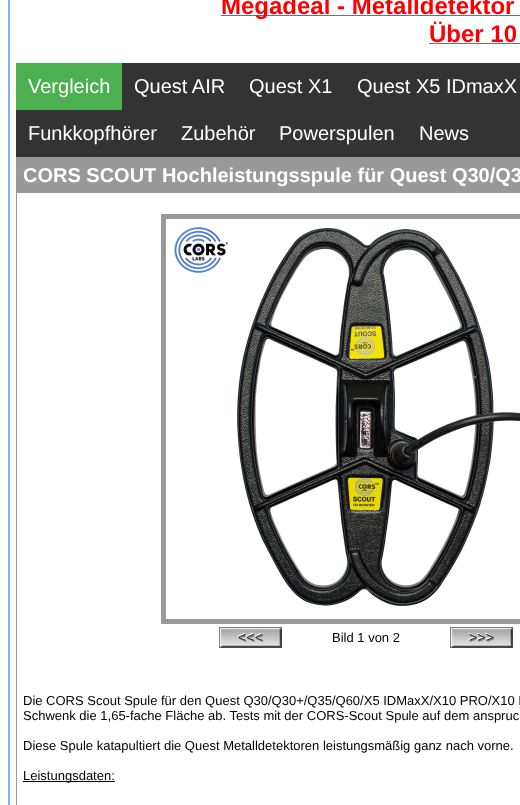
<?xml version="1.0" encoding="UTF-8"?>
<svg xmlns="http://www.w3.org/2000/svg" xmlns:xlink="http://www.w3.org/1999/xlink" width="520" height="805">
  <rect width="100%" height="100%" fill="#ffffff" />
  <rect x="9" y="-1" width="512" height="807" fill="none" stroke="#84affd" stroke-width="2" />
  <rect x="221" y="15" width="299" height="1" fill="#5b71a0" />
  <rect x="429" y="43" width="91" height="1" fill="#5b71a0" />
  <rect x="16" y="63" width="504" height="94" fill="#333333" />
  <rect x="16" y="63" width="106" height="47" fill="#4caf50" />
  <rect x="16.5" y="157.5" width="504" height="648" fill="none" stroke="#999999" />
  <rect x="17" y="158" width="503" height="35" fill="#999999" />
  <rect x="163.5" y="216.5" width="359" height="405" fill="none" stroke="#999999" stroke-width="5" />
  <image x="174" y="227" width="346" height="379" xlink:href="image1.png" />
  <image x="219" y="627" width="63" height="21" xlink:href="image2.png" />
  <image x="450" y="627" width="63" height="21" xlink:href="image3.png" />
  <rect x="23" y="781" width="92" height="1" fill="#000000" />
  <text x="221" y="14" style="font-family: Liberation Sans; font-size: 24px; font-weight: bold; fill: #ff0000">Megadeal - Metalldetektor</text>
  <text x="429" y="42" style="font-family: Liberation Sans; font-size: 24px; font-weight: bold; fill: #ff0000">Über 10</text>
  <text x="28" y="93" style="font-family: Liberation Sans; font-size: 20px; fill: #ffffff">Vergleich</text>
  <text x="134" y="93" style="font-family: Liberation Sans; font-size: 20px; fill: #ffffff">Quest AIR</text>
  <text x="249" y="93" style="font-family: Liberation Sans; font-size: 20px; fill: #ffffff">Quest X1</text>
  <text x="357" y="93" style="font-family: Liberation Sans; font-size: 20px; fill: #ffffff">Quest X5 IDmaxX</text>
  <text x="28" y="140" style="font-family: Liberation Sans; font-size: 20px; fill: #ffffff">Funkkopfhörer</text>
  <text x="181" y="140" style="font-family: Liberation Sans; font-size: 20px; fill: #ffffff">Zubehör</text>
  <text x="279" y="140" style="font-family: Liberation Sans; font-size: 20px; fill: #ffffff">Powerspulen</text>
  <text x="419" y="140" style="font-family: Liberation Sans; font-size: 20px; fill: #ffffff">News</text>
  <text x="23" y="182" style="font-family: Liberation Sans; font-size: 20px; font-weight: bold; fill: #ffffff">CORS SCOUT Hochleistungsspule für Quest Q30/Q3</text>
  <text x="332" y="642" style="font-family: Liberation Sans; font-size: 13px; fill: #000000">Bild 1 von 2</text>
  <text x="23" y="705" style="font-family: Liberation Sans; font-size: 13px; fill: #000000">Die CORS Scout Spule für den Quest Q30/Q30+/Q35/Q60/X5 IDMaxX/X10 PRO/X10 I</text>
  <text x="23" y="720" style="font-family: Liberation Sans; font-size: 13px; fill: #000000">Schwenk die 1,65-fache Fläche ab. Tests mit der CORS-Scout Spule auf dem anspruc</text>
  <text x="23" y="750" style="font-family: Liberation Sans; font-size: 13px; fill: #000000">Diese Spule katapultiert die Quest Metalldetektoren leistungsmäßig ganz nach vorne.</text>
  <text x="23" y="780" style="font-family: Liberation Sans; font-size: 13px; fill: #000000">Leistungsdaten:</text>
</svg>
